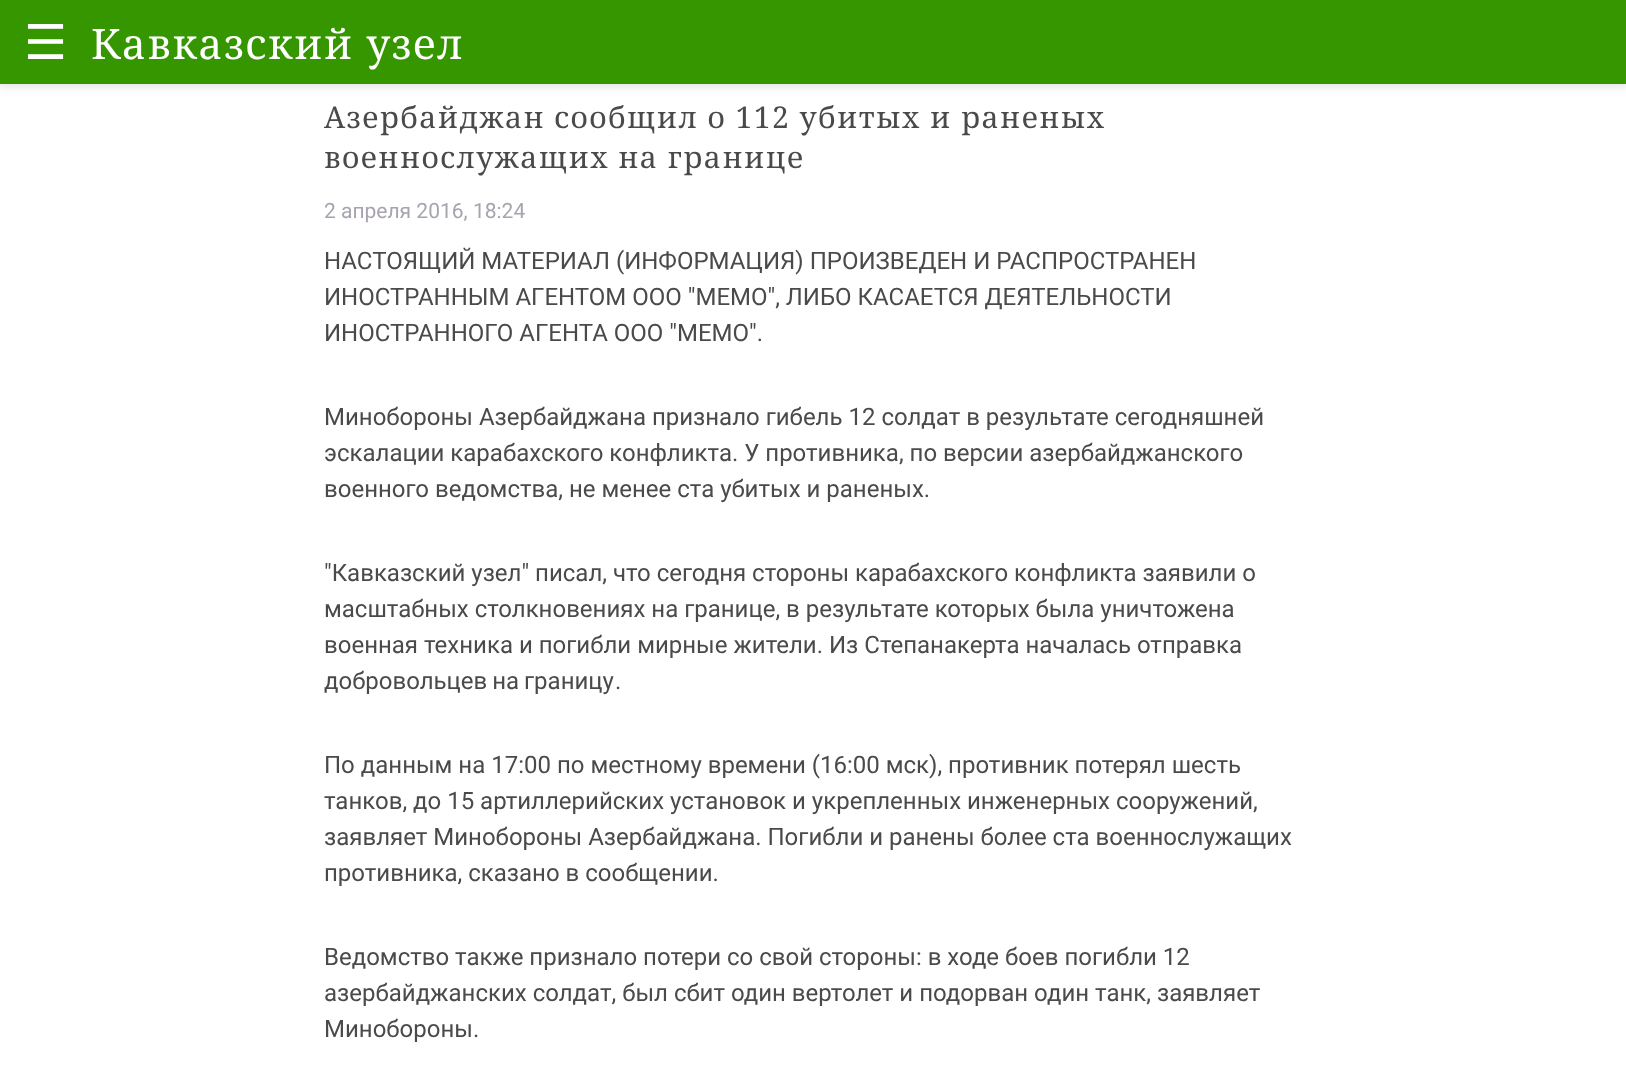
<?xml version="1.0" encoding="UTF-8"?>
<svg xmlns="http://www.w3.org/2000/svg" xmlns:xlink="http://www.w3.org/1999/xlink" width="1626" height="1073">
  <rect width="100%" height="100%" fill="#ffffff" />
  <rect x="-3" y="-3" width="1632" height="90" fill="#000000" fill-opacity="0.1" filter="blur(4px)" />
  <rect width="1626" height="84" fill="#359600" />
  <text x="24" y="59" style="font-family: DejaVu Sans; font-size: 48px; fill: #ffffff">☰</text>
  <text x="91" y="59" style="font-family: Noto Serif; font-size: 42px; letter-spacing: 1.5px; fill: #ffffff">Кавказский узел</text>
  <text x="324" y="128" style="font-family: Noto Serif; font-size: 30px; letter-spacing: 1.45px; fill: #4a4a4a">Азербайджан сообщил о 112 убитых и раненых</text>
  <text x="324" y="168" style="font-family: Noto Serif; font-size: 30px; letter-spacing: 1.45px; fill: #4a4a4a">военнослужащих на границе</text>
  <text x="324" y="218" style="font-family: Roboto; font-size: 21px; fill: #a8a3ae">2 апреля 2016, 18:24</text>
  <text x="324" y="269" style="font-family: Roboto; font-size: 24px; fill: #4a4a4a">НАСТОЯЩИЙ МАТЕРИАЛ (ИНФОРМАЦИЯ) ПРОИЗВЕДЕН И РАСПРОСТРАНЕН</text>
  <text x="324" y="305" style="font-family: Roboto; font-size: 24px; fill: #4a4a4a">ИНОСТРАННЫМ АГЕНТОМ ООО "МЕМО", ЛИБО КАСАЕТСЯ ДЕЯТЕЛЬНОСТИ</text>
  <text x="324" y="341" style="font-family: Roboto; font-size: 24px; fill: #4a4a4a">ИНОСТРАННОГО АГЕНТА ООО "МЕМО".</text>
  <text x="324" y="425" style="font-family: Roboto; font-size: 24px; fill: #4a4a4a">Минобороны Азербайджана признало гибель 12 солдат в результате сегодняшней</text>
  <text x="324" y="461" style="font-family: Roboto; font-size: 24px; fill: #4a4a4a">эскалации карабахского конфликта. У противника, по версии азербайджанского</text>
  <text x="324" y="497" style="font-family: Roboto; font-size: 24px; fill: #4a4a4a">военного ведомства, не менее ста убитых и раненых.</text>
  <text x="324" y="581" style="font-family: Roboto; font-size: 24px; fill: #4a4a4a">"Кавказский узел" писал, что сегодня стороны карабахского конфликта заявили о</text>
  <text x="324" y="617" style="font-family: Roboto; font-size: 24px; fill: #4a4a4a">масштабных столкновениях на границе, в результате которых была уничтожена</text>
  <text x="324" y="653" style="font-family: Roboto; font-size: 24px; fill: #4a4a4a">военная техника и погибли мирные жители. Из Степанакерта началась отправка</text>
  <text x="324" y="689" word-spacing="-1" style="font-family: Roboto; font-size: 24px; fill: #4a4a4a">добровольцев на границу</text>
  <text x="615" y="689" style="font-family: Roboto; font-size: 24px; fill: #4a4a4a">.</text>
  <text x="324" y="773" style="font-family: Roboto; font-size: 24px; fill: #4a4a4a">По данным на 17:00 по местному времени (16:00 мск), противник потерял шесть</text>
  <text x="324" y="809" style="font-family: Roboto; font-size: 24px; fill: #4a4a4a">танков, до 15 артиллерийских установок и укрепленных инженерных сооружений,</text>
  <text x="324" y="845" style="font-family: Roboto; font-size: 24px; fill: #4a4a4a">заявляет Минобороны Азербайджана. Погибли и ранены более ста военнослужащих</text>
  <text x="324" y="881" style="font-family: Roboto; font-size: 24px; fill: #4a4a4a">противника, сказано в сообщении.</text>
  <text x="324" y="965" style="font-family: Roboto; font-size: 24px; fill: #4a4a4a">Ведомство также признало потери со свой стороны: в ходе боев погибли 12</text>
  <text x="324" y="1001" style="font-family: Roboto; font-size: 24px; fill: #4a4a4a">азербайджанских солдат, был сбит один вертолет и подорван один танк, заявляет</text>
  <text x="324" y="1037" style="font-family: Roboto; font-size: 24px; fill: #4a4a4a">Минобороны.</text>
</svg>
